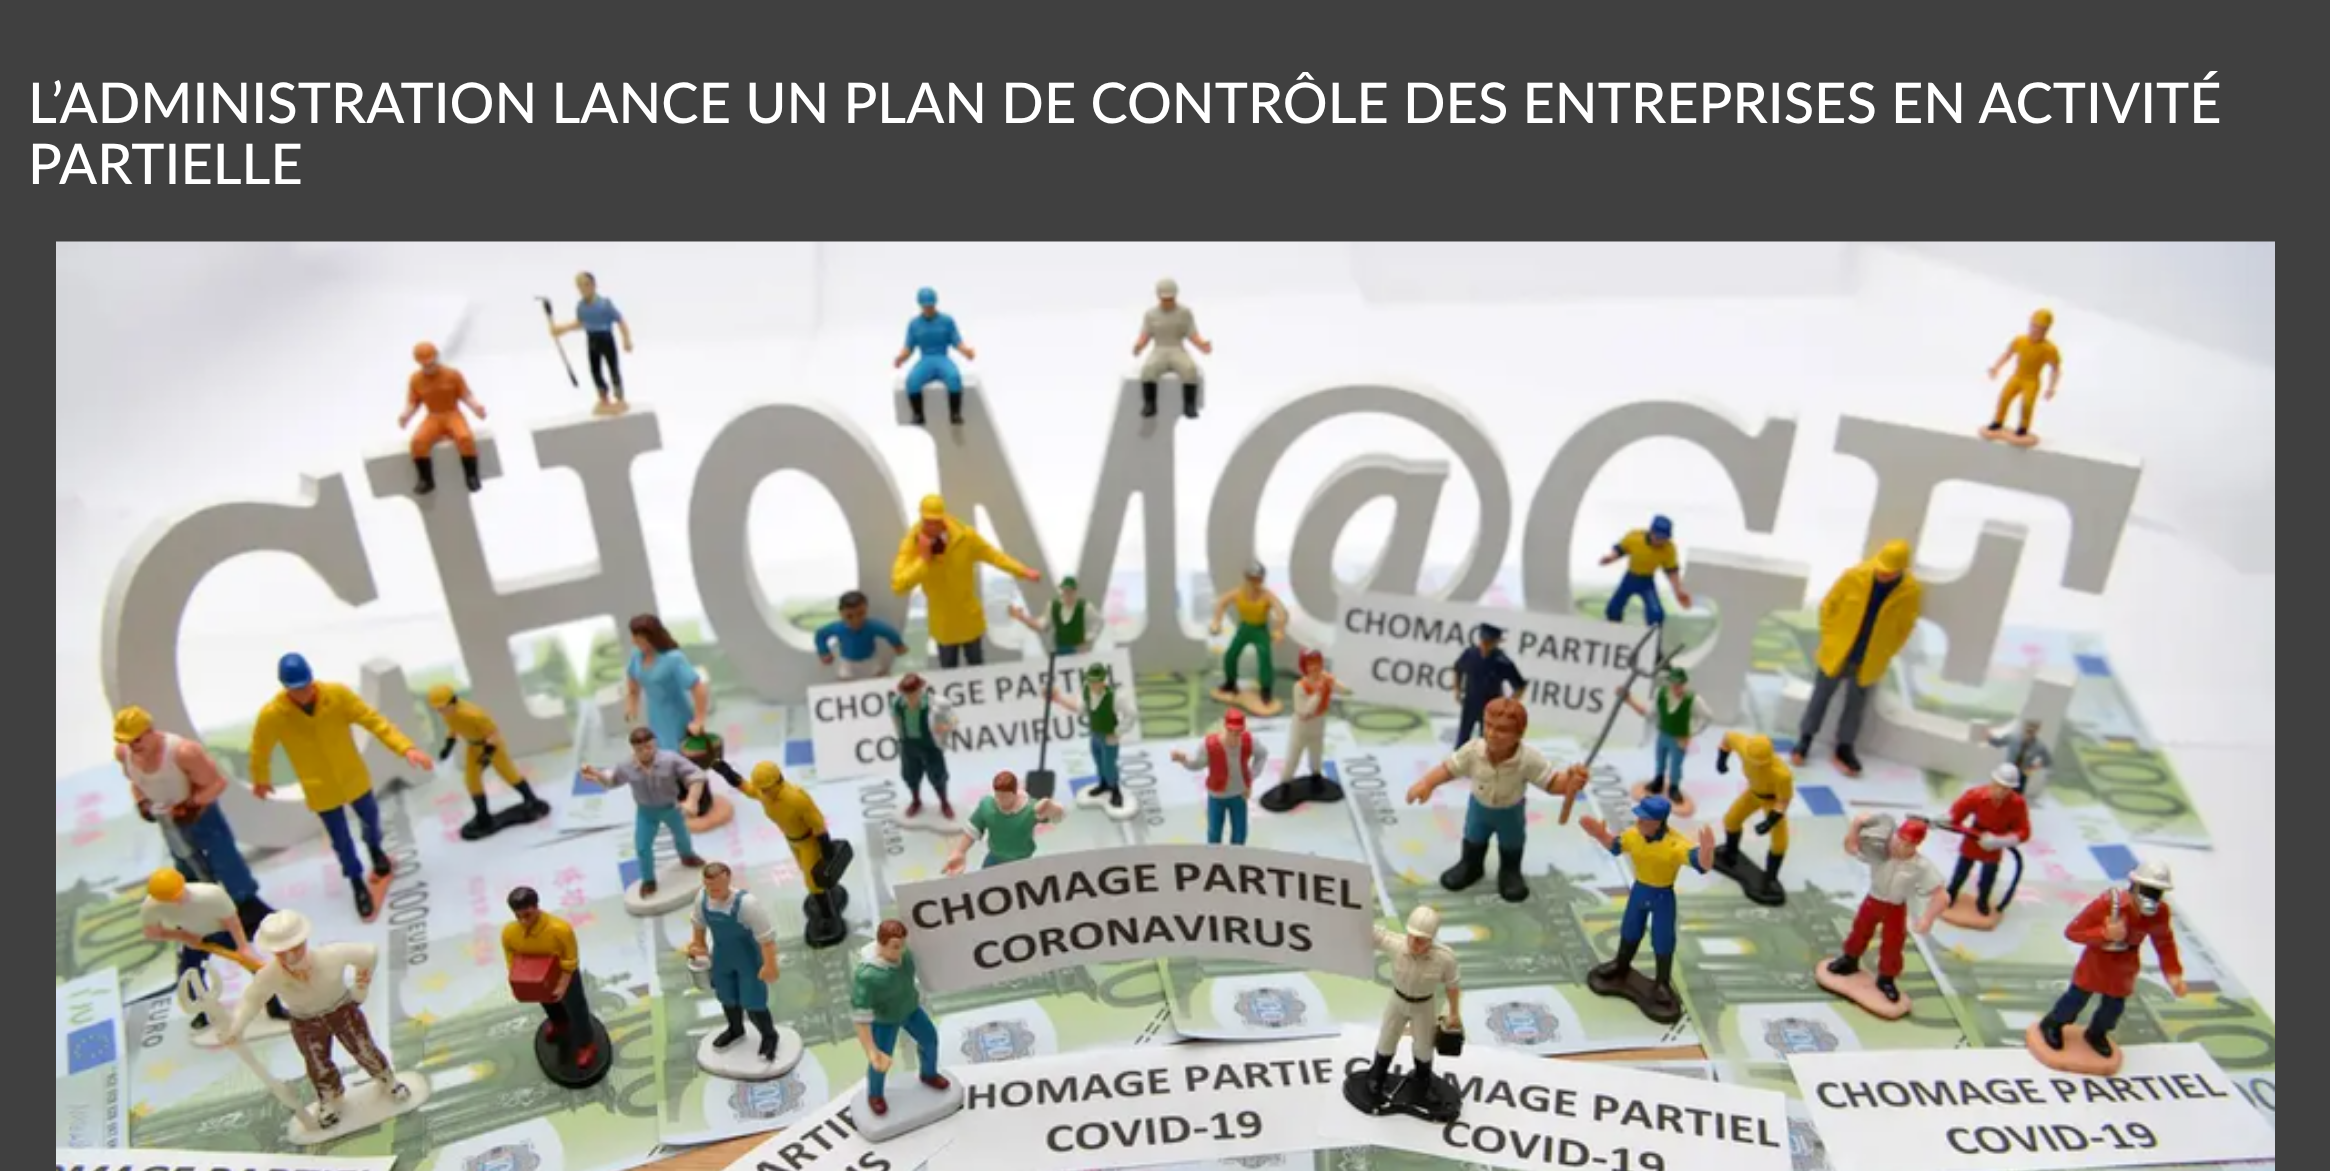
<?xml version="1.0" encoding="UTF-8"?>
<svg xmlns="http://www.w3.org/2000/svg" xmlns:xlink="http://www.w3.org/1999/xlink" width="2330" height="1171">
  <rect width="100%" height="100%" fill="#404040" />
  <image x="56" y="241" width="2219" height="930" xlink:href="image1.png" />
  <text x="28" y="123" style="font-family: Lato; font-size: 56px; font-weight: 500; fill: #ffffff">L’ADMINISTRATION LANCE UN PLAN DE CONTRÔLE DES ENTREPRISES EN ACTIVITÉ</text>
  <text x="28" y="184" style="font-family: Lato; font-size: 56px; font-weight: 500; fill: #ffffff">PARTIELLE</text>
</svg>
